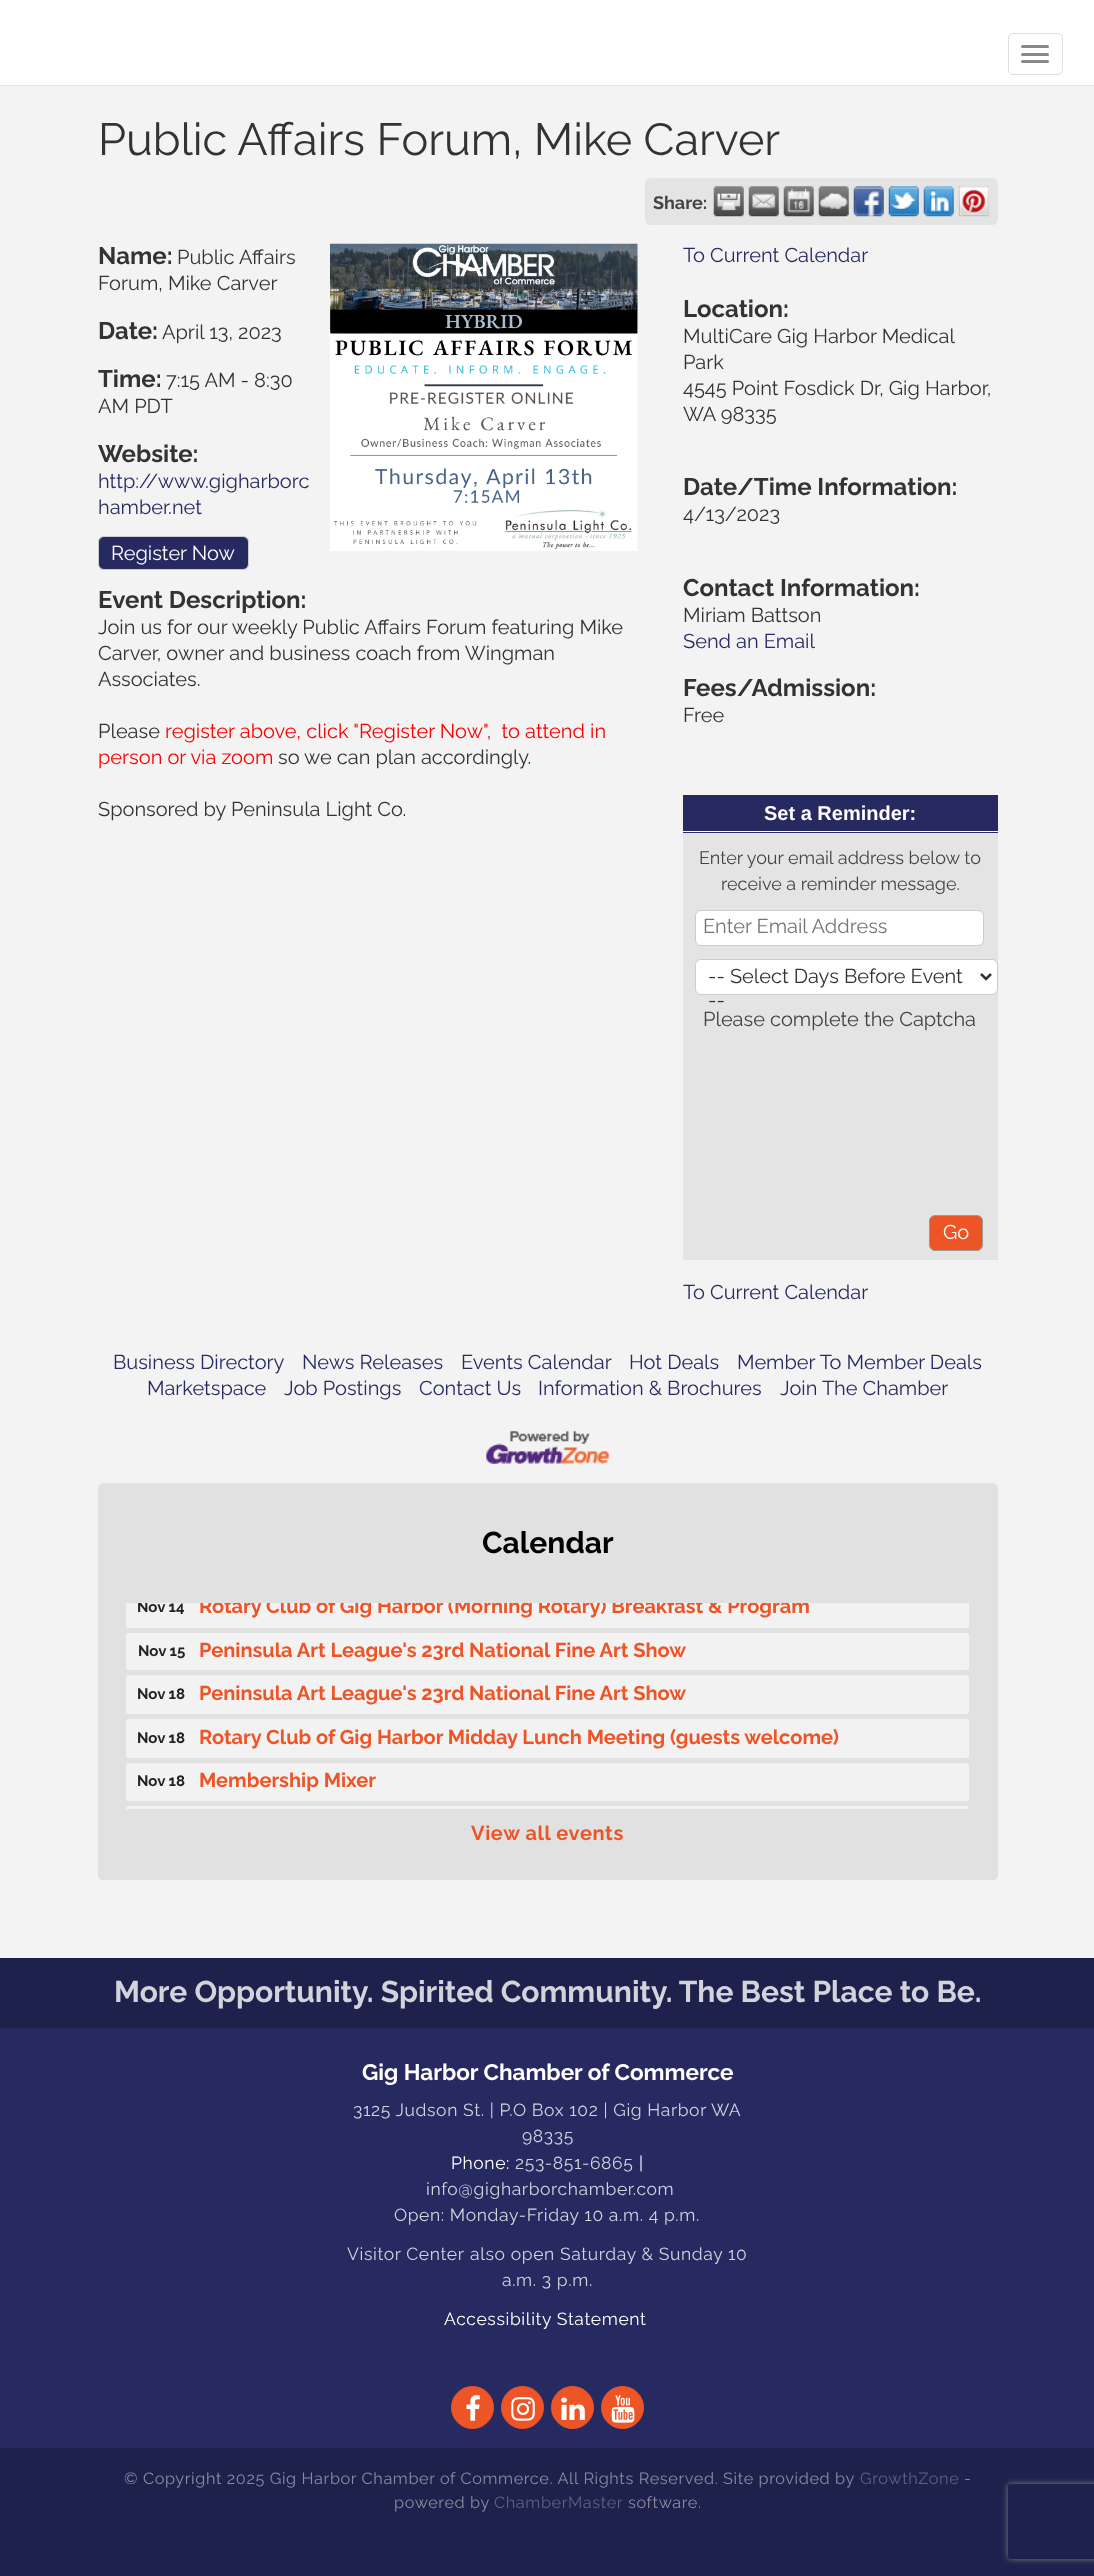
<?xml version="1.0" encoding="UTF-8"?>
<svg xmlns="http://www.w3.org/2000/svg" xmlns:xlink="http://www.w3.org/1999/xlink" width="1094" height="2576">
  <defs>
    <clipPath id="clip1"><path d="M 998 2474 h 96 v 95 h -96 z m 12.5 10 h 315 c 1.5 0 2.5 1 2.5 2.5 v 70 c 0 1.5 -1 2.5 -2.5 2.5 h -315 c -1.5 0 -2.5 -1 -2.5 -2.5 v -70 c 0 -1.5 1 -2.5 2.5 -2.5 z" clip-rule="evenodd" /></clipPath>
    <clipPath id="clip2"><rect x="126" y="1603" width="843" height="206" /></clipPath>
  </defs>
  <rect width="100%" height="100%" fill="#1e214b" />
  <rect width="1094" height="85" fill="#ffffff" />
  <rect y="85" width="1094" height="1" fill="#e6e6e6" />
  <rect x="1008.5" y="33.5" width="54" height="41" rx="4.5" fill="none" stroke="#dddddd" />
  <rect x="1021" y="45" width="28" height="3" rx="1.5" fill="#888888" />
  <rect x="1021" y="53" width="28" height="3" rx="1.5" fill="#888888" />
  <rect x="1021" y="60" width="28" height="3" rx="1.5" fill="#888888" />
  <rect y="86" width="1094" height="1872" fill="#f3f3f3" />
  <rect x="645" y="178" width="353" height="47" rx="6" fill="#e4e4e4" />
  <image x="713" y="186" width="31" height="31" xlink:href="image1.png" />
  <image x="748" y="186" width="31" height="31" xlink:href="image2.png" />
  <image x="783" y="186" width="31" height="31" xlink:href="image3.png" />
  <image x="818" y="186" width="31" height="31" xlink:href="image4.png" />
  <image x="853" y="186" width="31" height="31" xlink:href="image5.png" />
  <image x="888" y="186" width="31" height="31" xlink:href="image6.png" />
  <image x="923" y="186" width="31" height="31" xlink:href="image7.png" />
  <image x="958" y="186" width="31" height="31" xlink:href="image8.png" />
  <rect x="98.5" y="536.5" width="150" height="33" rx="5.5" fill="#272a61" stroke="#cccccc" />
  <image x="330" y="243" width="308" height="308" xlink:href="image9.png" />
  <rect x="683" y="833" width="315" height="427" fill="#e4e4e4" />
  <rect x="683" y="795" width="315" height="38" fill="#272a61" />
  <rect x="683" y="831" width="315" height="1" fill="#ffffff" />
  <rect x="695.5" y="910.5" width="288" height="35" rx="5.5" fill="#ffffff" stroke="#cccccc" />
  <rect x="695.5" y="959.5" width="302" height="35" rx="5.5" fill="#ffffff" stroke="#cccccc" />
  <path d="M 981 974 l 5 5 l 5 -5" fill="none" stroke="#333333" stroke-width="2.5" />
  <rect x="929.5" y="1215.5" width="53" height="35" rx="5.5" fill="#ed5426" stroke="#999999" />
  <image x="486" y="1431" width="123" height="33" xlink:href="image10.png" />
  <rect x="98" y="1483" width="900" height="397" rx="5" fill="#e1e1e1" />
  <path d="M 98 1574 h 900 v 302 c 0 2 -2 4 -4 4 h -892 c -2 0 -4 -2 -4 -4 z" fill="#e1e1e1" />
  <path d="M 126 1603 h 843 v 22.5 c 0 1.5 -1 2.5 -2.5 2.5 h -838 c -1.5 0 -2.5 -1 -2.5 -2.5 z" fill="#f2f2f2" />
  <rect x="126" y="1633" width="843" height="37" rx="2.5" fill="#f2f2f2" />
  <rect x="126" y="1675" width="843" height="39" rx="2.5" fill="#f2f2f2" />
  <rect x="126" y="1719" width="843" height="39" rx="2.5" fill="#f2f2f2" />
  <rect x="126" y="1763" width="843" height="38" rx="2.5" fill="#f2f2f2" />
  <path d="M 128.5 1806 h 838 c 1.5 0 2.5 1 2.5 2.5 v 0.5 h -843 v -0.5 c 0 -1.5 1 -2.5 2.5 -2.5 z" fill="#f2f2f2" />
  <rect y="2028" width="1094" height="420" fill="#272a61" />
  <circle cx="472.5" cy="2407.5" r="21" fill="#ee5526" stroke="#ee5526" />
  <image x="466" y="2395" width="14" height="26" xlink:href="image11.png" />
  <circle cx="522.5" cy="2407.5" r="21" fill="#ee5526" stroke="#ee5526" />
  <image x="511" y="2397" width="24" height="24" xlink:href="image12.png" />
  <circle cx="572.5" cy="2407.5" r="21" fill="#ee5526" stroke="#ee5526" />
  <image x="561" y="2397" width="24" height="23" xlink:href="image13.png" />
  <circle cx="622.5" cy="2407.5" r="21" fill="#ee5526" stroke="#ee5526" />
  <image x="611" y="2395" width="24" height="28" xlink:href="image14.png" />
  <g clip-path="url(#clip1)">
    <rect x="1008" y="2484" width="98" height="75" rx="2.5" fill="#808080" filter="blur(3px)" />
  </g>
  <text x="98" y="155" style="font-family: Raleway; font-size: 45px; fill: #333333">Public Affairs Forum, Mike Carver</text>
  <text x="653" y="209" style="font-family: Raleway; font-size: 18px; font-weight: bold; fill: #444444">Share:</text>
  <text x="98" y="264" style="font-family: Raleway; font-size: 24px; font-weight: bold; fill: #333333">Name:</text>
  <text x="177" y="264" style="font-family: Raleway; font-size: 20px; fill: #333333">Public Affairs</text>
  <text x="98" y="290" style="font-family: Raleway; font-size: 20px; fill: #333333">Forum, Mike Carver</text>
  <text x="98" y="339" style="font-family: Raleway; font-size: 24px; font-weight: bold; fill: #333333">Date:</text>
  <text x="162" y="339" style="font-family: Raleway; font-size: 20px; fill: #333333">April 13, 2023</text>
  <text x="98" y="387" style="font-family: Raleway; font-size: 24px; font-weight: bold; fill: #333333">Time:</text>
  <text x="166" y="387" style="font-family: Raleway; font-size: 20px; fill: #333333">7:15 AM - 8:30</text>
  <text x="98" y="413" style="font-family: Raleway; font-size: 20px; fill: #333333">AM PDT</text>
  <text x="98" y="462" style="font-family: Raleway; font-size: 24px; font-weight: bold; fill: #333333">Website:</text>
  <text x="98" y="488" style="font-family: Raleway; font-size: 20px; fill: #272a61">http://www.gigharborc</text>
  <text x="98" y="514" style="font-family: Raleway; font-size: 20px; fill: #272a61">hamber.net</text>
  <text x="111" y="560" style="font-family: Raleway; font-size: 20px; fill: #ffffff">Register Now</text>
  <text x="98" y="608" style="font-family: Raleway; font-size: 24px; font-weight: bold; fill: #333333">Event Description:</text>
  <text x="98" y="634" style="font-family: Raleway; font-size: 20px; fill: #333333">Join us for our weekly Public Affairs Forum featuring Mike</text>
  <text x="98" y="660" style="font-family: Raleway; font-size: 20px; fill: #333333">Carver, owner and business coach from Wingman</text>
  <text x="98" y="686" style="font-family: Raleway; font-size: 20px; fill: #333333">Associates.</text>
  <text x="98" y="738" style="font-family: Raleway; font-size: 20px; fill: #333333">Please</text>
  <text x="165" y="738" style="font-family: Raleway; font-size: 20px; fill: #ff0000" xml:space="preserve">register above, click "Register Now",  to attend in</text>
  <text x="98" y="764" style="font-family: Raleway; font-size: 20px; fill: #ff0000">person or via zoom</text>
  <text x="278" y="764" style="font-family: Raleway; font-size: 20px; fill: #333333">so we can plan accordingly.</text>
  <text x="98" y="816" style="font-family: Raleway; font-size: 20px; fill: #333333">Sponsored by Peninsula Light Co.</text>
  <text x="683" y="262" style="font-family: Raleway; font-size: 20px; fill: #272a61">To Current Calendar</text>
  <text x="683" y="317" style="font-family: Raleway; font-size: 24px; font-weight: bold; fill: #333333">Location:</text>
  <text x="683" y="343" style="font-family: Raleway; font-size: 20px; fill: #333333">MultiCare Gig Harbor Medical</text>
  <text x="683" y="369" style="font-family: Raleway; font-size: 20px; fill: #333333">Park</text>
  <text x="683" y="395" style="font-family: Raleway; font-size: 20px; fill: #333333">4545 Point Fosdick Dr, Gig Harbor,</text>
  <text x="683" y="421" style="font-family: Raleway; font-size: 20px; fill: #333333">WA 98335</text>
  <text x="683" y="495" style="font-family: Raleway; font-size: 24px; font-weight: bold; fill: #333333">Date/Time Information:</text>
  <text x="683" y="521" style="font-family: Raleway; font-size: 20px; fill: #333333">4/13/2023</text>
  <text x="683" y="596" style="font-family: Raleway; font-size: 24px; font-weight: bold; fill: #333333">Contact Information:</text>
  <text x="683" y="622" style="font-family: Raleway; font-size: 20px; fill: #333333">Miriam Battson</text>
  <text x="683" y="648" style="font-family: Raleway; font-size: 20px; fill: #272a61">Send an Email</text>
  <text x="683" y="696" style="font-family: Raleway; font-size: 24px; font-weight: bold; fill: #333333">Fees/Admission:</text>
  <text x="683" y="722" style="font-family: Raleway; font-size: 20px; fill: #333333">Free</text>
  <text x="764" y="820" style="font-family: Liberation Sans; font-size: 20px; font-weight: bold; fill: #ffffff">Set a Reminder:</text>
  <text x="699" y="864" style="font-family: Raleway; font-size: 18px; fill: #444444">Enter your email address below to</text>
  <text x="721" y="890" style="font-family: Raleway; font-size: 18px; fill: #444444">receive a reminder message.</text>
  <text x="703" y="933" style="font-family: Raleway; font-size: 20px; fill: #757575">Enter Email Address</text>
  <text x="708" y="983" style="font-family: Raleway; font-size: 20px; fill: #333333">-- Select Days Before Event</text>
  <text x="708" y="1007" style="font-family: Raleway; font-size: 20px; fill: #333333">--</text>
  <text x="703" y="1026" style="font-family: Raleway; font-size: 20px; fill: #444444">Please complete the Captcha</text>
  <text x="943" y="1239" style="font-family: Raleway; font-size: 20px; fill: #ffffff">Go</text>
  <text x="683" y="1299" style="font-family: Raleway; font-size: 20px; fill: #272a61">To Current Calendar</text>
  <text x="113" y="1369" style="font-family: Raleway; font-size: 20px; fill: #272a61">Business Directory</text>
  <text x="302" y="1369" style="font-family: Raleway; font-size: 20px; fill: #272a61">News Releases</text>
  <text x="461" y="1369" style="font-family: Raleway; font-size: 20px; fill: #272a61">Events Calendar</text>
  <text x="629" y="1369" style="font-family: Raleway; font-size: 20px; fill: #272a61">Hot Deals</text>
  <text x="737" y="1369" style="font-family: Raleway; font-size: 20px; fill: #272a61">Member To Member Deals</text>
  <text x="147" y="1395" style="font-family: Raleway; font-size: 20px; fill: #272a61">Marketspace</text>
  <text x="284" y="1395" style="font-family: Raleway; font-size: 20px; fill: #272a61">Job Postings</text>
  <text x="419" y="1395" style="font-family: Raleway; font-size: 20px; fill: #272a61">Contact Us</text>
  <text x="538" y="1395" style="font-family: Raleway; font-size: 20px; fill: #272a61">Information &amp; Brochures</text>
  <text x="780" y="1395" style="font-family: Raleway; font-size: 20px; fill: #272a61">Join The Chamber</text>
  <text x="482" y="1553" style="font-family: Raleway; font-size: 30px; font-weight: bold; fill: #000000">Calendar</text>
  <g clip-path="url(#clip2)">
    <text x="137" y="1612" style="font-family: Raleway; font-size: 15px; font-weight: bold; fill: #222222">Nov 14</text>
    <text x="199" y="1613" style="font-family: Raleway; font-size: 20px; font-weight: bold; fill: #ed5426">Rotary Club of Gig Harbor (Morning Rotary) Breakfast &amp; Program</text>
  </g>
  <text x="138" y="1656" style="font-family: Raleway; font-size: 15px; font-weight: bold; fill: #222222">Nov 15</text>
  <text x="199" y="1657" style="font-family: Raleway; font-size: 20px; font-weight: bold; fill: #ed5426">Peninsula Art League's 23rd National Fine Art Show</text>
  <text x="137" y="1699" style="font-family: Raleway; font-size: 15px; font-weight: bold; fill: #222222">Nov 18</text>
  <text x="199" y="1700" style="font-family: Raleway; font-size: 20px; font-weight: bold; fill: #ed5426">Peninsula Art League's 23rd National Fine Art Show</text>
  <text x="137" y="1743" style="font-family: Raleway; font-size: 15px; font-weight: bold; fill: #222222">Nov 18</text>
  <text x="199" y="1744" style="font-family: Raleway; font-size: 20px; font-weight: bold; fill: #ed5426">Rotary Club of Gig Harbor Midday Lunch Meeting (guests welcome)</text>
  <text x="137" y="1786" style="font-family: Raleway; font-size: 15px; font-weight: bold; fill: #222222">Nov 18</text>
  <text x="199" y="1787" style="font-family: Raleway; font-size: 20px; font-weight: bold; fill: #ed5426">Membership Mixer</text>
  <text x="471" y="1840" style="font-family: Raleway; font-size: 20px; font-weight: bold; letter-spacing: 0.62px; fill: #ed5426">View all events</text>
  <text x="114" y="2002" style="font-family: Raleway; font-size: 30px; font-weight: bold; fill: #d2d3db">More Opportunity. Spirited Community. The Best Place to Be.</text>
  <text x="362" y="2080" style="font-family: Raleway; font-size: 22.5px; font-weight: bold; fill: #ffffff">Gig Harbor Chamber of Commerce</text>
  <text x="353" y="2116" style="font-family: Raleway; font-size: 17.5px; letter-spacing: 0.62px; fill: #d2d3db">3125 Judson St. | P.O Box 102 | Gig Harbor WA</text>
  <text x="522" y="2142" style="font-family: Raleway; font-size: 17.5px; letter-spacing: 0.62px; fill: #d2d3db">98335</text>
  <text x="451" y="2169" style="font-family: Raleway; font-size: 17.5px; letter-spacing: 0.62px; fill: #ffffff">Phone:</text>
  <text x="515" y="2169" style="font-family: Raleway; font-size: 17.5px; letter-spacing: 0.62px; fill: #d2d3db">253-851-6865</text>
  <text x="639" y="2169" style="font-family: Raleway; font-size: 17.5px; letter-spacing: 0.62px; fill: #ffffff">|</text>
  <text x="426" y="2195" style="font-family: Raleway; font-size: 17.5px; letter-spacing: 0.62px; fill: #d2d3db">info@gigharborchamber.com</text>
  <text x="394" y="2221" style="font-family: Raleway; font-size: 17.5px; letter-spacing: 0.62px; fill: #d2d3db">Open: Monday-Friday 10 a.m. 4 p.m.</text>
  <text x="347" y="2260" style="font-family: Raleway; font-size: 17.5px; letter-spacing: 0.62px; fill: #d2d3db">Visitor Center</text>
  <text x="470" y="2260" style="font-family: Raleway; font-size: 17.5px; letter-spacing: 0.62px; fill: #d2d3db">also open Saturday &amp; Sunday 10</text>
  <text x="502" y="2286" style="font-family: Raleway; font-size: 17.5px; letter-spacing: 0.62px; fill: #d2d3db">a.m. 3 p.m.</text>
  <text x="444" y="2325" style="font-family: Raleway; font-size: 17.5px; letter-spacing: 0.62px; fill: #ffffff">Accessibility Statement</text>
  <text x="124" y="2484" style="font-family: Raleway; font-size: 16.25px; letter-spacing: 0.62px; fill: #8a8ba1">© Copyright 2025 Gig Harbor Chamber of Commerce. All Rights Reserved. Site provided by</text>
  <text x="860" y="2484" style="font-family: Raleway; font-size: 16.25px; letter-spacing: 0.62px; fill: #5f617f">GrowthZone</text>
  <text x="964" y="2484" style="font-family: Raleway; font-size: 16.25px; letter-spacing: 0.62px; fill: #8a8ba1">-</text>
  <text x="394" y="2508" style="font-family: Raleway; font-size: 16.25px; letter-spacing: 0.62px; fill: #8a8ba1">powered by</text>
  <text x="494" y="2508" style="font-family: Raleway; font-size: 16.25px; letter-spacing: 0.62px; fill: #5f617f">ChamberMaster</text>
  <text x="628" y="2508" style="font-family: Raleway; font-size: 16.25px; letter-spacing: 0.62px; fill: #8a8ba1">software.</text>
</svg>
